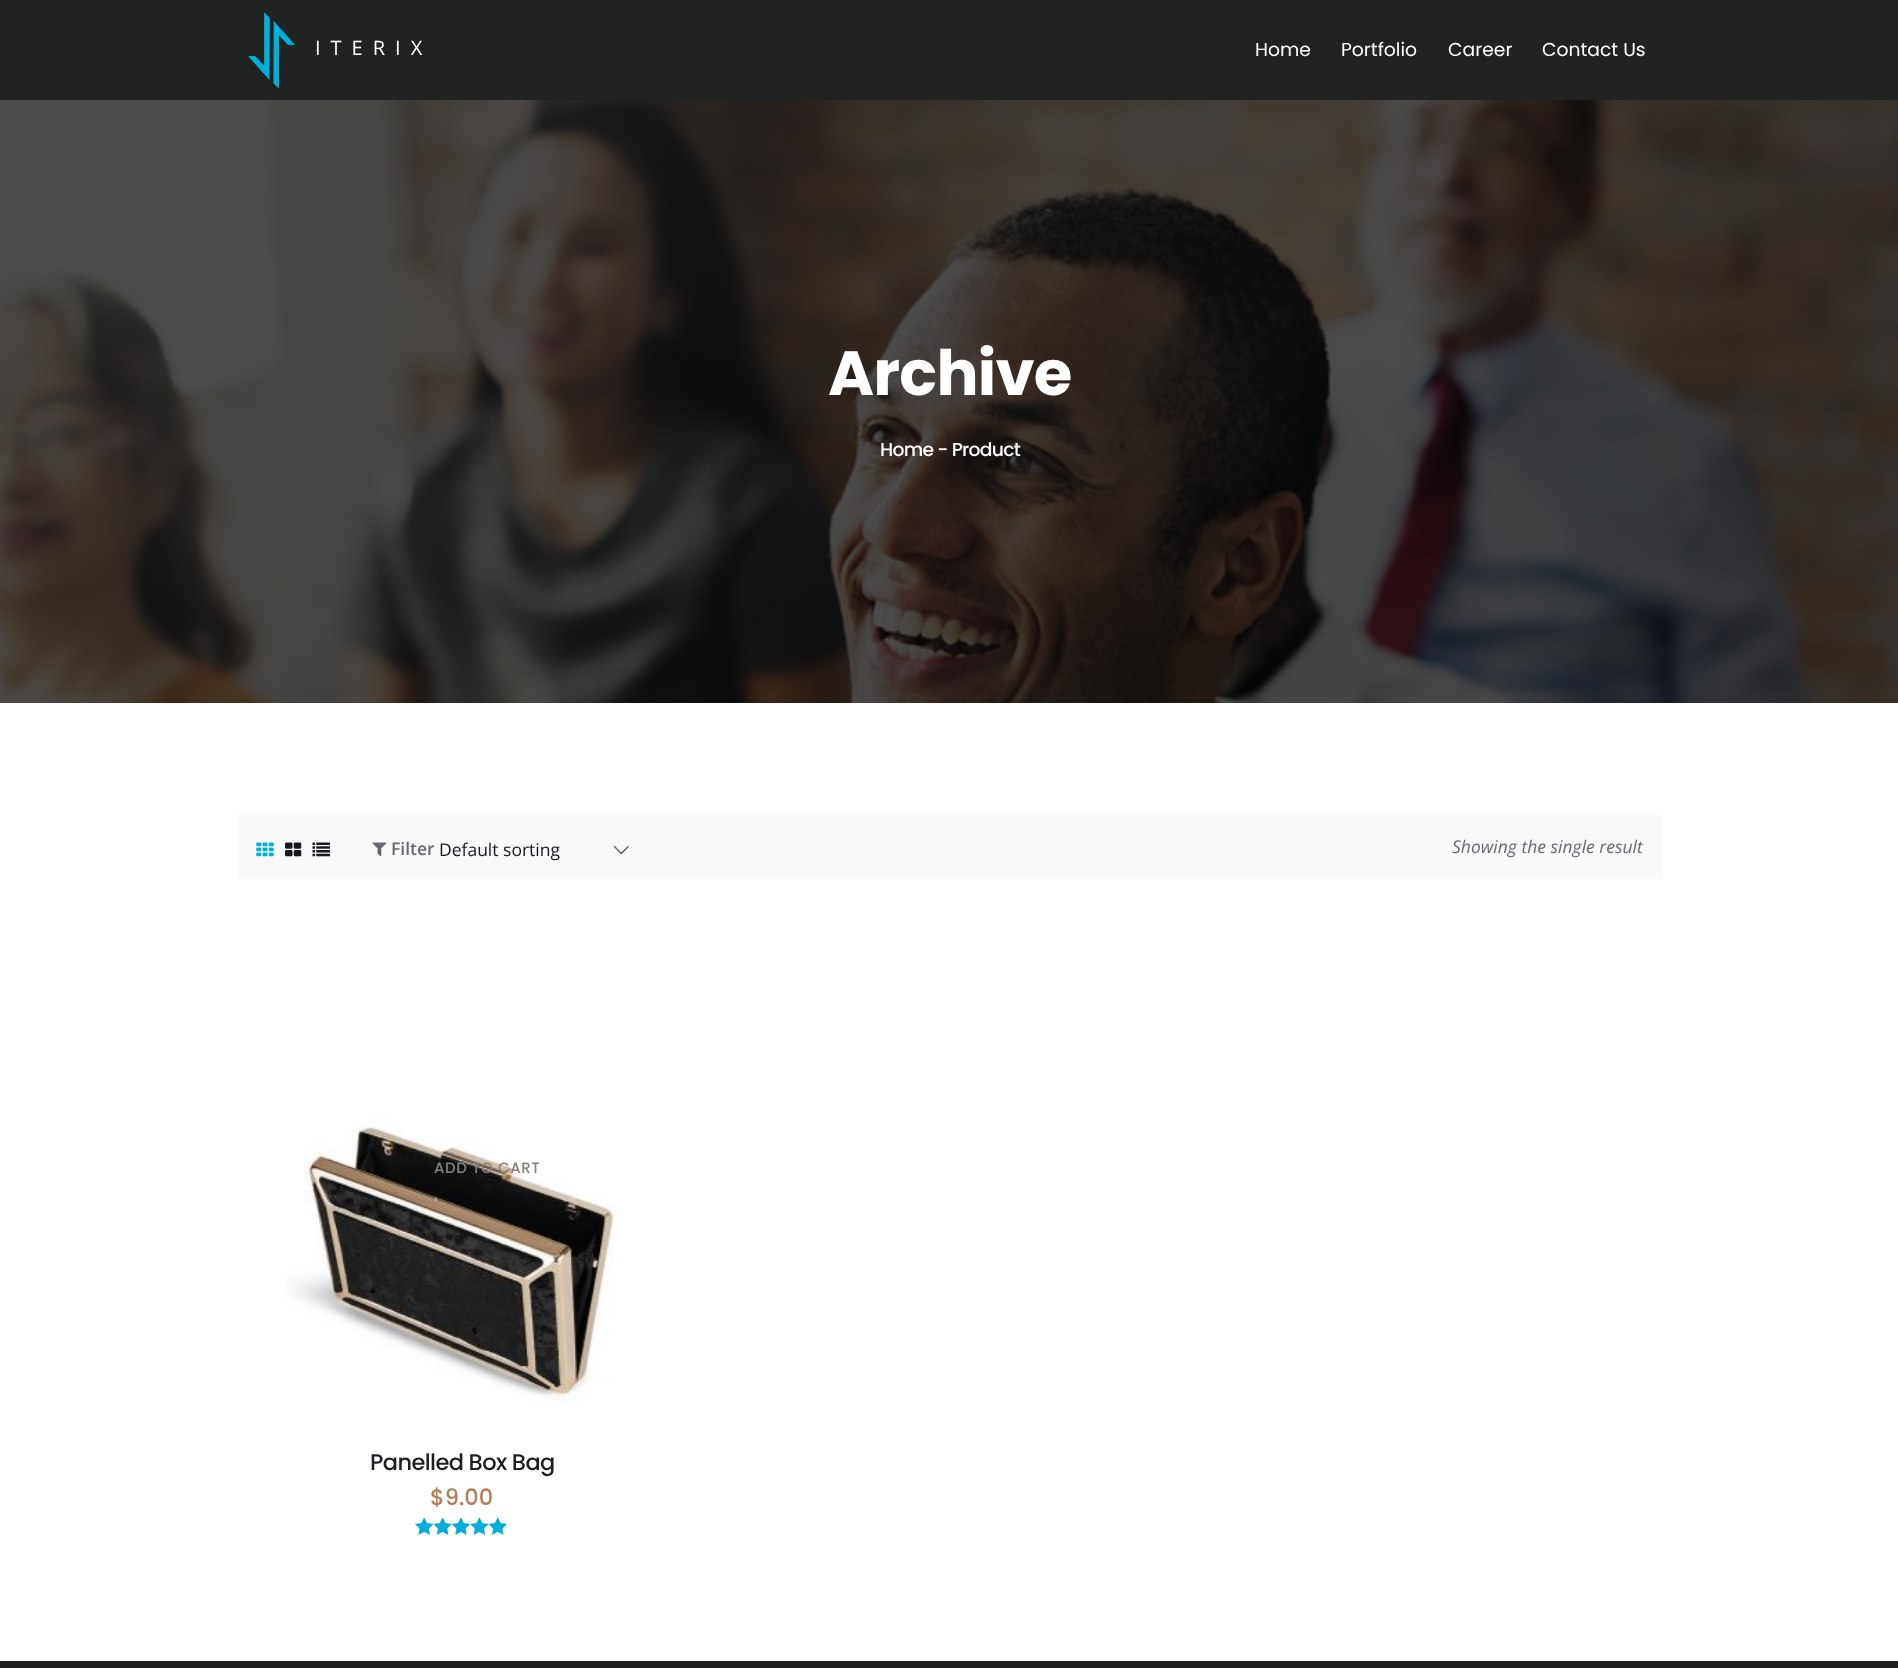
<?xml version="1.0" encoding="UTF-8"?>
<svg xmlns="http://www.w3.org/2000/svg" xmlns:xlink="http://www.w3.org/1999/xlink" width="1898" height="1668">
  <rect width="100%" height="100%" fill="#ffffff" />
  <rect width="1898" height="100" fill="#212222" />
  <image x="248" y="12" width="47" height="77" xlink:href="image1.png" />
  <image x="0" y="100" width="1898" height="603" xlink:href="image2.png" />
  <rect x="238" y="815" width="1425" height="64" fill="#f9f9f9" />
  <image x="256" y="842" width="18" height="15" xlink:href="image3.png" />
  <image x="285" y="842" width="17" height="15" xlink:href="image4.png" />
  <image x="312" y="842" width="18" height="15" xlink:href="image5.png" />
  <image x="372" y="842" width="15" height="15" xlink:href="image6.png" />
  <image x="613" y="845" width="16" height="10" xlink:href="image7.png" />
  <image x="285" y="1115" width="330" height="288" xlink:href="image8.png" />
  <image x="415" y="1518" width="92" height="17" xlink:href="image9.png" />
  <image x="415" y="1518" width="92" height="17" xlink:href="image10.png" />
  <rect y="1661" width="1898" height="7" fill="#202020" />
  <text x="315" y="55" style="font-family: Open Sans; font-size: 20px; letter-spacing: 10px; fill: #ffffff">ITERIX</text>
  <text x="1255" y="56" style="font-family: Poppins; font-size: 18.75px; fill: #ffffff">Home</text>
  <text x="1341" y="56" style="font-family: Poppins; font-size: 18.75px; fill: #ffffff">Portfolio</text>
  <text x="1448" y="56" style="font-family: Poppins; font-size: 18.75px; fill: #ffffff">Career</text>
  <text x="1542" y="56" style="font-family: Poppins; font-size: 18.75px; fill: #ffffff">Contact Us</text>
  <text x="828" y="395" style="font-family: Poppins; font-size: 62.5px; font-weight: bold; letter-spacing: -0.75px; fill: #ffffff">Archive</text>
  <text x="880" y="456" style="font-family: Poppins; font-size: 18.75px; font-weight: 500; letter-spacing: -0.75px; fill: #ffffff">Home - Product</text>
  <text x="391" y="855" style="font-family: Open Sans; font-size: 17.5px; font-weight: 600; fill: #686876">Filter</text>
  <text x="439" y="856" style="font-family: Open Sans; font-size: 17.5px; fill: #171721">Default sorting</text>
  <text x="1452" y="853" style="font-family: Open Sans; font-size: 17.5px; font-style: italic; fill: #686876">Showing the single result</text>
  <text x="434" y="1173" style="font-family: Poppins; font-size: 15px; font-weight: 500; letter-spacing: 0.6px; fill: #85817c">ADD TO CART</text>
  <text x="370" y="1470" style="font-family: Poppins; font-size: 22.5px; font-weight: 500; letter-spacing: -0.6px; fill: #1c1f23">Panelled Box Bag</text>
  <text x="430" y="1505" style="font-family: Poppins; font-size: 22.5px; font-weight: 500; fill: #b67c5a">$9.00</text>
</svg>
